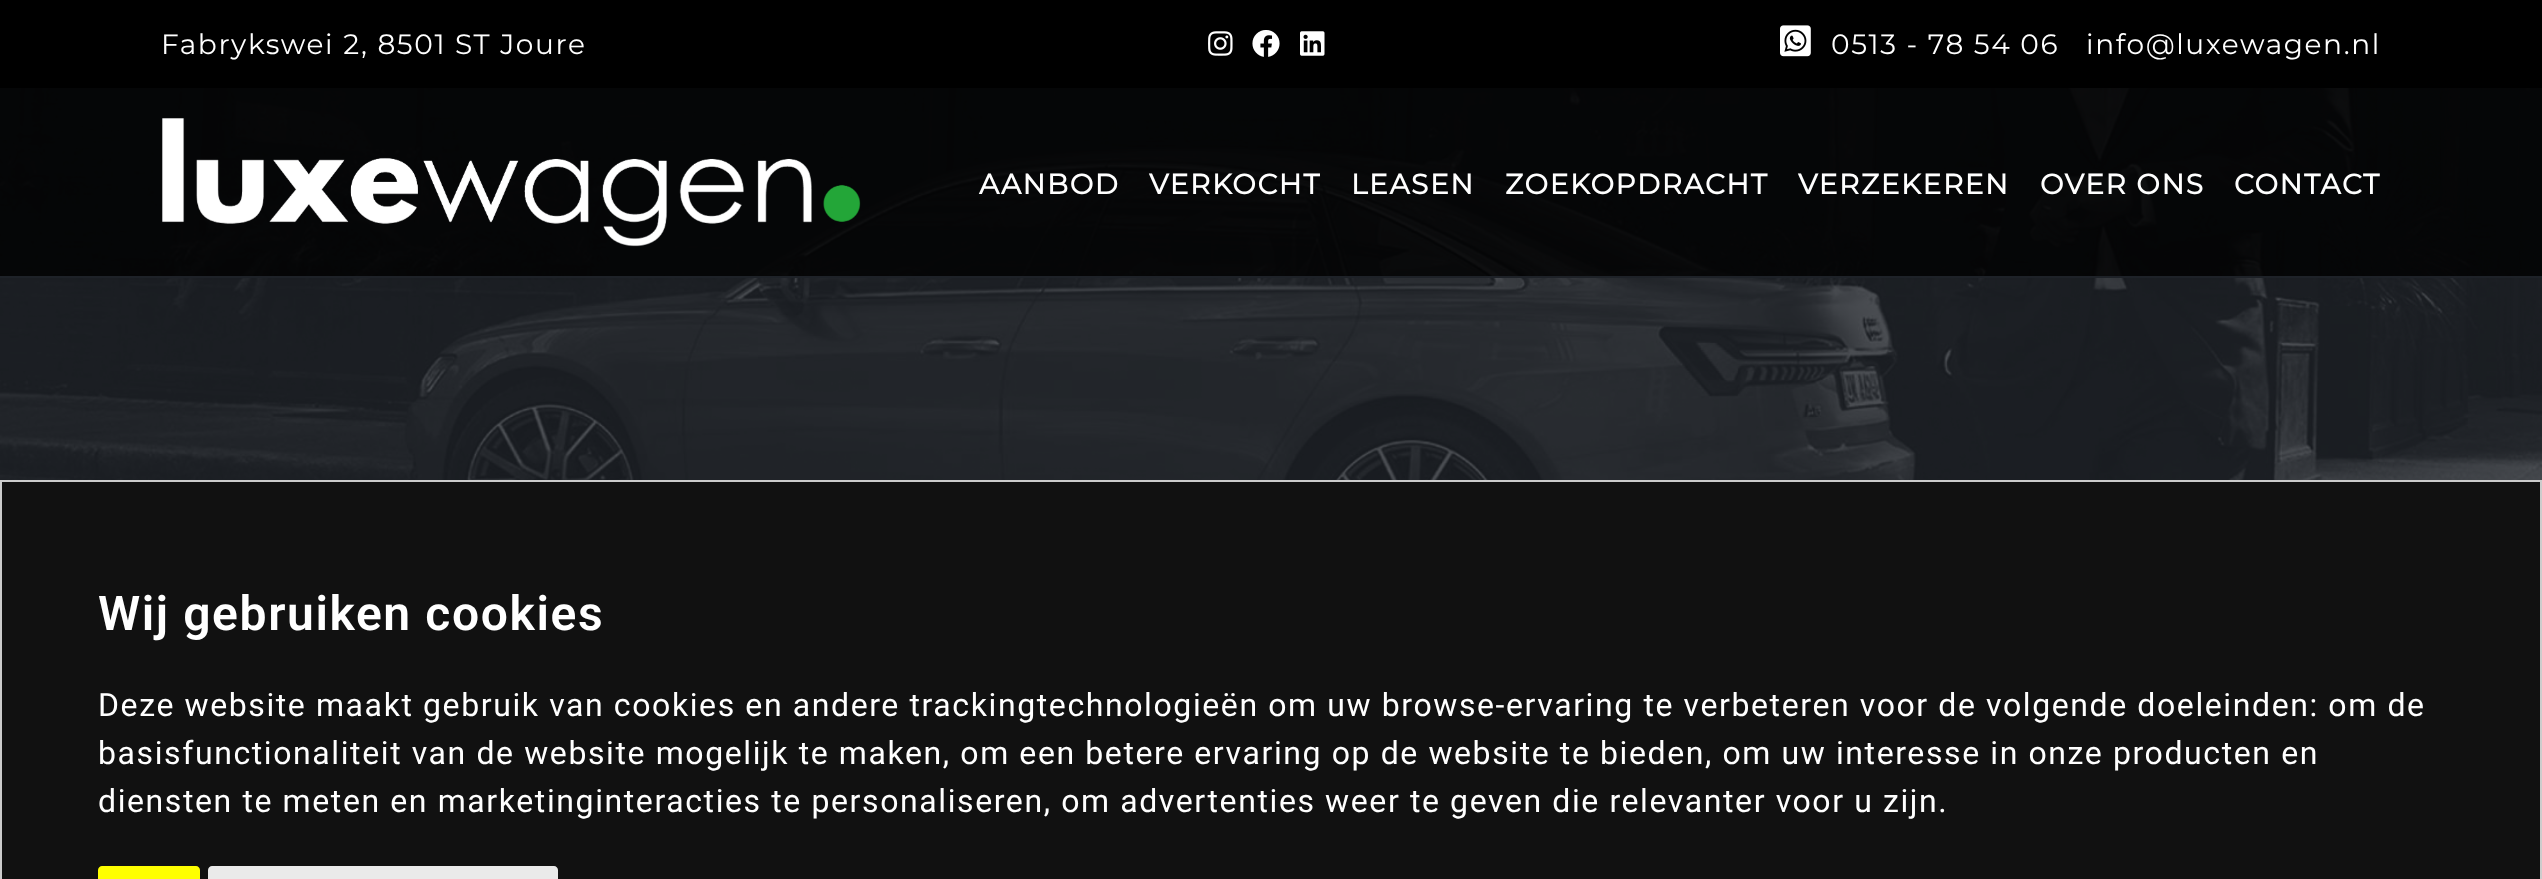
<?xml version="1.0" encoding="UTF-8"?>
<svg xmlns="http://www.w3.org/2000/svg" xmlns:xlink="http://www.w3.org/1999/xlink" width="2542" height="879">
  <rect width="100%" height="100%" fill="#ffffff" />
  <rect width="2542" height="88" fill="#000000" />
  <image x="1208" y="31" width="25" height="25" xlink:href="image1.png" />
  <image x="1252" y="30" width="28" height="27" xlink:href="image2.png" />
  <image x="1300" y="31" width="25" height="25" xlink:href="image3.png" />
  <image x="1780" y="25" width="31" height="32" xlink:href="image4.png" />
  <image x="0" y="88" width="2542" height="392" xlink:href="image6.png" />
  <rect y="88" width="2542" height="188" fill="#000000" fill-opacity="0.8" />
  <rect y="276" width="2542" height="2" fill="#1e2228" />
  <image x="162" y="118" width="699" height="129" xlink:href="image5.png" />
  <rect x="1" y="481" width="2540" height="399" fill="#111111" stroke="#cccccc" stroke-width="2" />
  <path d="M 102 866 h 94 c 2 0 4 2 4 4 v 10 h -102 v -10 c 0 -2 2 -4 4 -4 z" fill="#ffff00" />
  <path d="M 212 866 h 342 c 2 0 4 2 4 4 v 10 h -350 v -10 c 0 -2 2 -4 4 -4 z" fill="#eaeaea" />
  <text x="161" y="54" style="font-family: Montserrat; font-size: 28px; font-weight: 100; letter-spacing: 1.6px; fill: #ffffff">Fabrykswei 2, 8501 ST Joure</text>
  <text x="1831" y="54" style="font-family: Montserrat; font-size: 28px; font-weight: 100; letter-spacing: 1.6px; fill: #ffffff">0513 - 78 54 06</text>
  <text x="2086" y="54" style="font-family: Montserrat; font-size: 28px; font-weight: 100; letter-spacing: 1.6px; fill: #ffffff">info@luxewagen.nl</text>
  <text x="979" y="194" style="font-family: Montserrat; font-size: 28px; font-weight: bold; letter-spacing: 1.6px; fill: #ffffff">AANBOD</text>
  <text x="1149" y="194" style="font-family: Montserrat; font-size: 28px; font-weight: bold; letter-spacing: 1.6px; fill: #ffffff">VERKOCHT</text>
  <text x="1351" y="194" style="font-family: Montserrat; font-size: 28px; font-weight: bold; letter-spacing: 1.6px; fill: #ffffff">LEASEN</text>
  <text x="1505" y="194" style="font-family: Montserrat; font-size: 28px; font-weight: bold; letter-spacing: 1.6px; fill: #ffffff">ZOEKOPDRACHT</text>
  <text x="1798" y="194" style="font-family: Montserrat; font-size: 28px; font-weight: bold; letter-spacing: 1.6px; fill: #ffffff">VERZEKEREN</text>
  <text x="2040" y="194" style="font-family: Montserrat; font-size: 28px; font-weight: bold; letter-spacing: 1.6px; fill: #ffffff">OVER ONS</text>
  <text x="2234" y="194" style="font-family: Montserrat; font-size: 28px; font-weight: bold; letter-spacing: 1.6px; fill: #ffffff">CONTACT</text>
  <text x="98" y="630" style="font-family: Roboto; font-size: 48px; font-weight: 600; letter-spacing: 1.6px; fill: #ffffff">Wij gebruiken cookies</text>
  <text x="98" y="716" style="font-family: Roboto; font-size: 32px; letter-spacing: 1.6px; fill: #ffffff">Deze website maakt gebruik van cookies en andere trackingtechnologieën om uw browse-ervaring te verbeteren voor de volgende doeleinden: om de</text>
  <text x="98" y="764" style="font-family: Roboto; font-size: 32px; letter-spacing: 1.6px; fill: #ffffff">basisfunctionaliteit van de website mogelijk te maken, om een betere ervaring op de website te bieden, om uw interesse in onze producten en</text>
  <text x="98" y="812" style="font-family: Roboto; font-size: 32px; letter-spacing: 1.6px; fill: #ffffff">diensten te meten en marketinginteracties te personaliseren, om advertenties weer te geven die relevanter voor u zijn.</text>
</svg>
